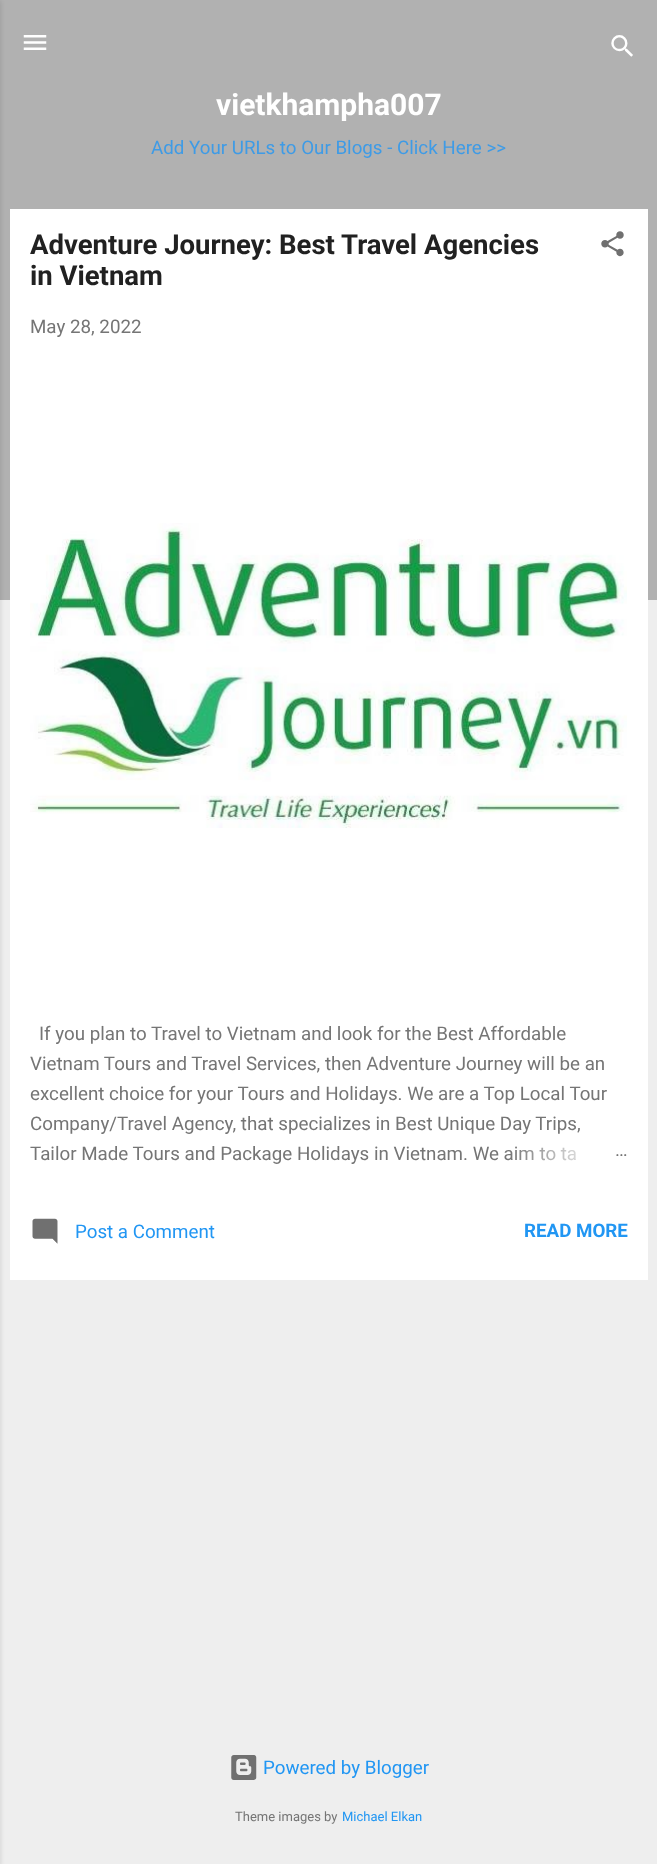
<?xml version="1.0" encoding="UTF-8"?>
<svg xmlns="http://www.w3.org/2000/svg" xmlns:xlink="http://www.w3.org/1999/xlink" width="657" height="1864">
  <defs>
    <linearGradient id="g1" gradientUnits="userSpaceOnUse" x1="628" y1="1154" x2="508" y2="1154"><stop offset="0" stop-color="#ffffff" /><stop offset="0.2" stop-color="#ffffff" /><stop offset="1" stop-color="#ffffff" stop-opacity="0" /></linearGradient>
  </defs>
  <rect width="100%" height="100%" fill="#eeeeee" />
  <rect width="657" height="600" fill="#b1b1b1" />
  <rect x="-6" y="1" width="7" height="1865" fill="#000000" fill-opacity="0.1" filter="blur(2px)" />
  <image x="23" y="35" width="24" height="15" xlink:href="image1.png" />
  <image x="611" y="35" width="22" height="22" xlink:href="image2.png" />
  <rect x="10" y="209" width="638" height="1071" fill="#ffffff" />
  <image x="601" y="231" width="23" height="26" xlink:href="image3.png" />
  <image x="30" y="523" width="597" height="305" xlink:href="image4.png" />
  <image x="32" y="1218" width="26" height="26" xlink:href="image5.png" />
  <image x="231" y="1755" width="26" height="25" xlink:href="image6.png" />
  <text x="216" y="115" style="font-family: Roboto; font-size: 30px; font-weight: bold; fill: #ffffff">vietkhampha007</text>
  <text x="151" y="154" style="font-family: Roboto; font-size: 18.75px; fill: #3e9be6">Add Your URLs to Our Blogs - Click Here &gt;&gt;</text>
  <text x="30" y="254" style="font-family: Roboto; font-size: 27.5px; font-weight: bold; fill: #212121">Adventure Journey: Best Travel Agencies</text>
  <text x="30" y="285" style="font-family: Roboto; font-size: 27.5px; font-weight: bold; fill: #212121">in Vietnam</text>
  <text x="30" y="333" style="font-family: Roboto; font-size: 18.75px; fill: #757575">May 28, 2022</text>
  <text x="39" y="1040" style="font-family: Roboto; font-size: 18.75px; fill: #757575">If you plan to Travel to Vietnam and look for the Best Affordable</text>
  <text x="30" y="1070" style="font-family: Roboto; font-size: 18.75px; fill: #757575">Vietnam Tours and Travel Services, then Adventure Journey will be an</text>
  <text x="30" y="1100" style="font-family: Roboto; font-size: 18.75px; fill: #757575">excellent choice for your Tours and Holidays. We are a Top Local Tour</text>
  <text x="30" y="1130" style="font-family: Roboto; font-size: 18.75px; fill: #757575">Company/Travel Agency, that specializes in Best Unique Day Trips,</text>
  <text x="30" y="1160" style="font-family: Roboto; font-size: 18.75px; fill: #757575">Tailor Made Tours and Package Holidays in Vietnam. We aim to ta</text>
  <rect x="510" y="1146" width="66" height="15" fill="url(#g1)" />
  <text x="615" y="1156" style="font-family: Roboto; font-size: 18.75px; fill: #757575">…</text>
  <text x="75" y="1238" style="font-family: Roboto; font-size: 18.75px; fill: #2196f3">Post a Comment</text>
  <text x="524" y="1237" style="font-family: Roboto; font-size: 18.75px; font-weight: bold; fill: #2196f3">READ MORE</text>
  <text x="263" y="1774" style="font-family: Roboto; font-size: 18.75px; fill: #2196f3">Powered by Blogger</text>
  <text x="235" y="1821" style="font-family: Roboto; font-size: 13px; fill: #757575">Theme images by</text>
  <text x="342" y="1821" style="font-family: Roboto; font-size: 13px; fill: #2196f3">Michael Elkan</text>
</svg>
